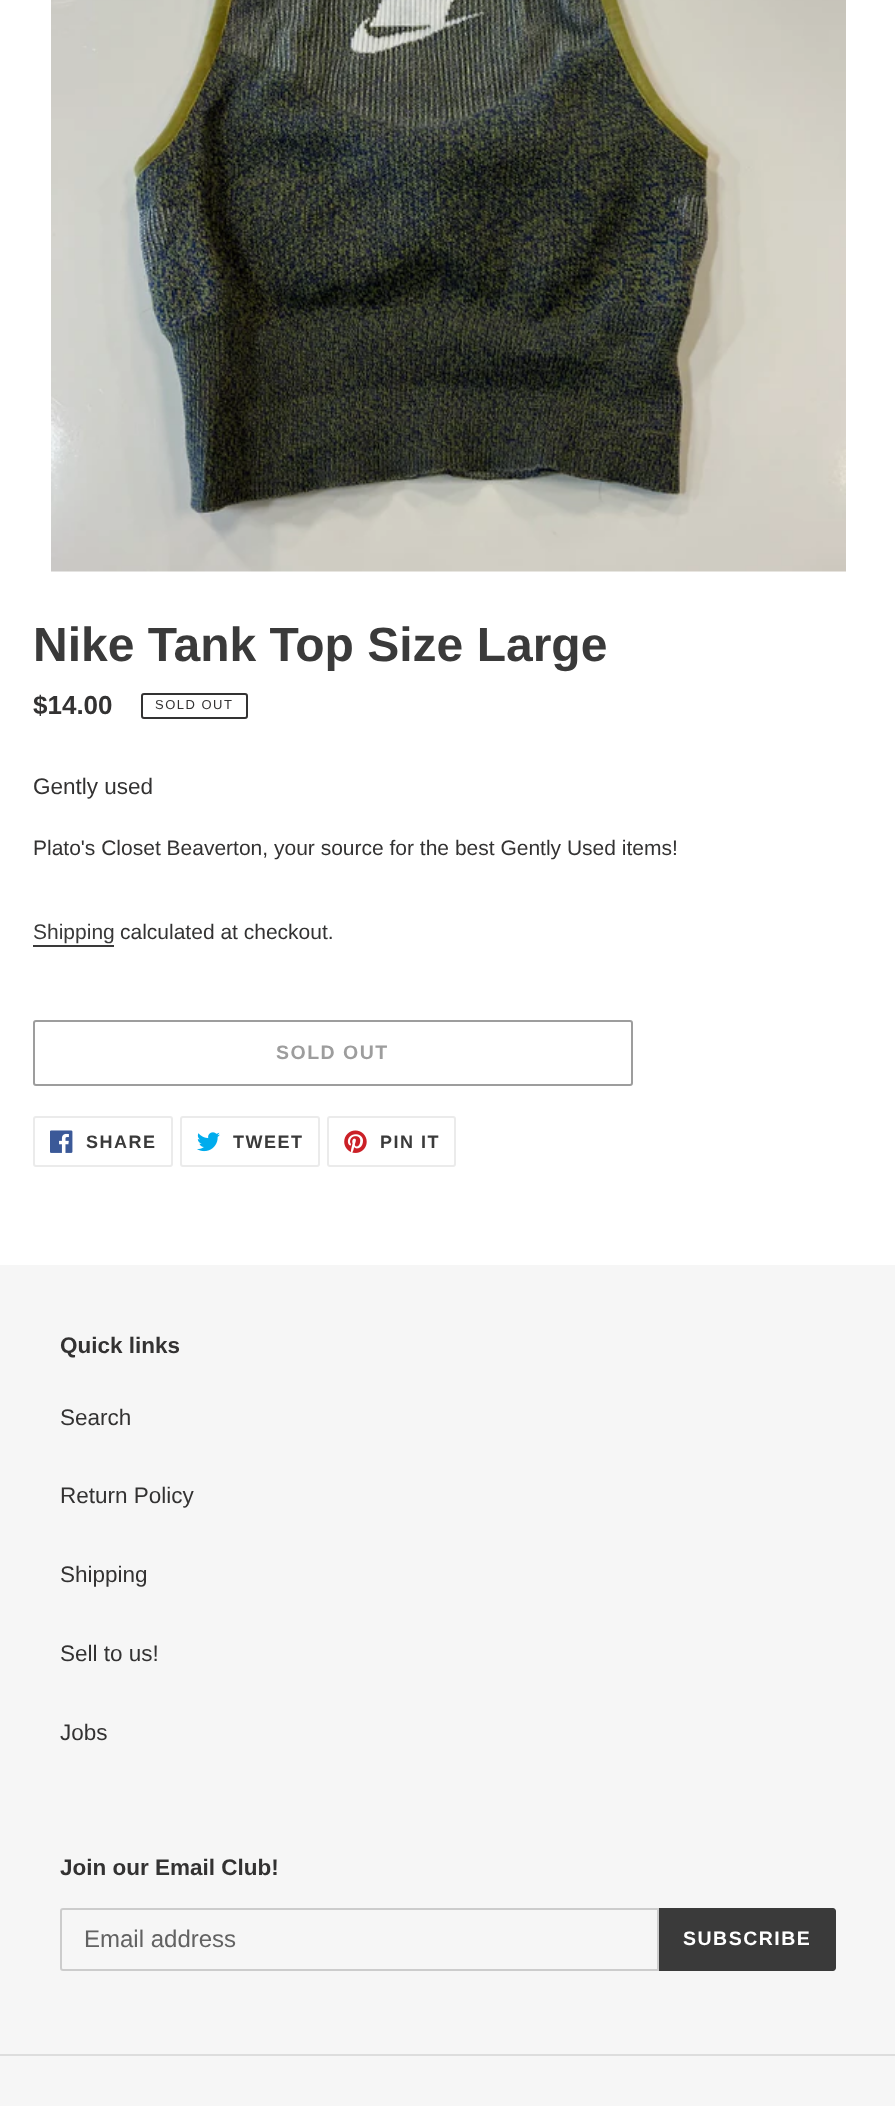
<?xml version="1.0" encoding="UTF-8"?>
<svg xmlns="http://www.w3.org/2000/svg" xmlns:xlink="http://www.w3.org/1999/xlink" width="895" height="2106">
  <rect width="100%" height="100%" fill="#ffffff" />
  <image x="51" y="0" width="795" height="572" xlink:href="image1.png" />
  <rect x="142" y="694" width="105" height="24" rx="2" fill="none" stroke="#333232" stroke-width="2" />
  <rect x="33" y="945" width="81" height="2" fill="#3a3a3a" />
  <rect x="34" y="1021" width="598" height="64" rx="2" fill="none" stroke="#9d9d9d" stroke-width="2" />
  <rect x="34" y="1117" width="138" height="49" rx="2" fill="none" stroke="#ebebeb" stroke-width="2" />
  <image x="50" y="1130" width="23" height="23" xlink:href="image2.png" />
  <rect x="181" y="1117" width="138" height="49" rx="2" fill="none" stroke="#ebebeb" stroke-width="2" />
  <image x="197" y="1132" width="23" height="20" xlink:href="image3.png" />
  <rect x="328" y="1117" width="127" height="49" rx="2" fill="none" stroke="#ebebeb" stroke-width="2" />
  <image x="344" y="1130" width="23" height="23" xlink:href="image4.png" />
  <rect y="1265" width="895" height="841" fill="#f6f6f6" />
  <path d="M 63 1909 h 595 v 61 h -595 c -1 0 -2 -1 -2 -2 v -57 c 0 -1 1 -2 2 -2 z" fill="none" stroke="#cccccc" stroke-width="2" />
  <path d="M 659 1908 h 174 c 1.5 0 3 1.5 3 3 v 57 c 0 1.5 -1.5 3 -3 3 h -174 z" fill="#3a3a3a" />
  <rect y="2054" width="895" height="2" fill="#dddddd" />
  <text x="33" y="661" style="font-family: Liberation Sans; font-size: 48px; font-weight: bold; fill: #3a3a3a">Nike Tank Top Size Large</text>
  <text x="33" y="714" style="font-family: Liberation Sans; font-size: 26px; font-weight: bold; fill: #333232">$14.00</text>
  <text x="155" y="709" style="font-family: Liberation Sans; font-size: 13px; letter-spacing: 1.5px; fill: #333232">SOLD OUT</text>
  <text x="33" y="794" style="font-family: Liberation Sans; font-size: 22.5px; fill: #333232">Gently used</text>
  <text x="33" y="855" style="font-family: Liberation Sans; font-size: 21px; fill: #333232">Plato's Closet Beaverton, your source for the best Gently Used items!</text>
  <text x="33" y="939" style="font-family: Liberation Sans; font-size: 21px; fill: #3a3a3a">Shipping</text>
  <text x="120" y="939" style="font-family: Liberation Sans; font-size: 21px; fill: #333232">calculated at checkout.</text>
  <text x="276" y="1059" style="font-family: Liberation Sans; font-size: 19.5px; font-weight: bold; letter-spacing: 1.5px; fill: #9d9d9d">SOLD OUT</text>
  <text x="86" y="1148" style="font-family: Liberation Sans; font-size: 18px; font-weight: bold; letter-spacing: 1.5px; fill: #3a3a3a">SHARE</text>
  <text x="233" y="1148" style="font-family: Liberation Sans; font-size: 18px; font-weight: bold; letter-spacing: 1.5px; fill: #3a3a3a">TWEET</text>
  <text x="380" y="1148" style="font-family: Liberation Sans; font-size: 18px; font-weight: bold; letter-spacing: 1.5px; fill: #3a3a3a">PIN IT</text>
  <text x="60" y="1353" style="font-family: Liberation Sans; font-size: 22.5px; font-weight: bold; fill: #333232">Quick links</text>
  <text x="60" y="1425" style="font-family: Liberation Sans; font-size: 22.5px; fill: #333232">Search</text>
  <text x="60" y="1503" style="font-family: Liberation Sans; font-size: 22.5px; fill: #333232">Return Policy</text>
  <text x="60" y="1582" style="font-family: Liberation Sans; font-size: 22.5px; fill: #333232">Shipping</text>
  <text x="60" y="1661" style="font-family: Liberation Sans; font-size: 22.5px; fill: #333232">Sell to us!</text>
  <text x="60" y="1740" style="font-family: Liberation Sans; font-size: 22.5px; fill: #333232">Jobs</text>
  <text x="60" y="1875" style="font-family: Liberation Sans; font-size: 22.5px; font-weight: bold; fill: #333232">Join our Email Club!</text>
  <text x="84" y="1947" style="font-family: Liberation Sans; font-size: 24px; fill: #626262">Email address</text>
  <text x="683" y="1945" style="font-family: Liberation Sans; font-size: 19.5px; font-weight: bold; letter-spacing: 1.5px; fill: #ffffff">SUBSCRIBE</text>
</svg>
